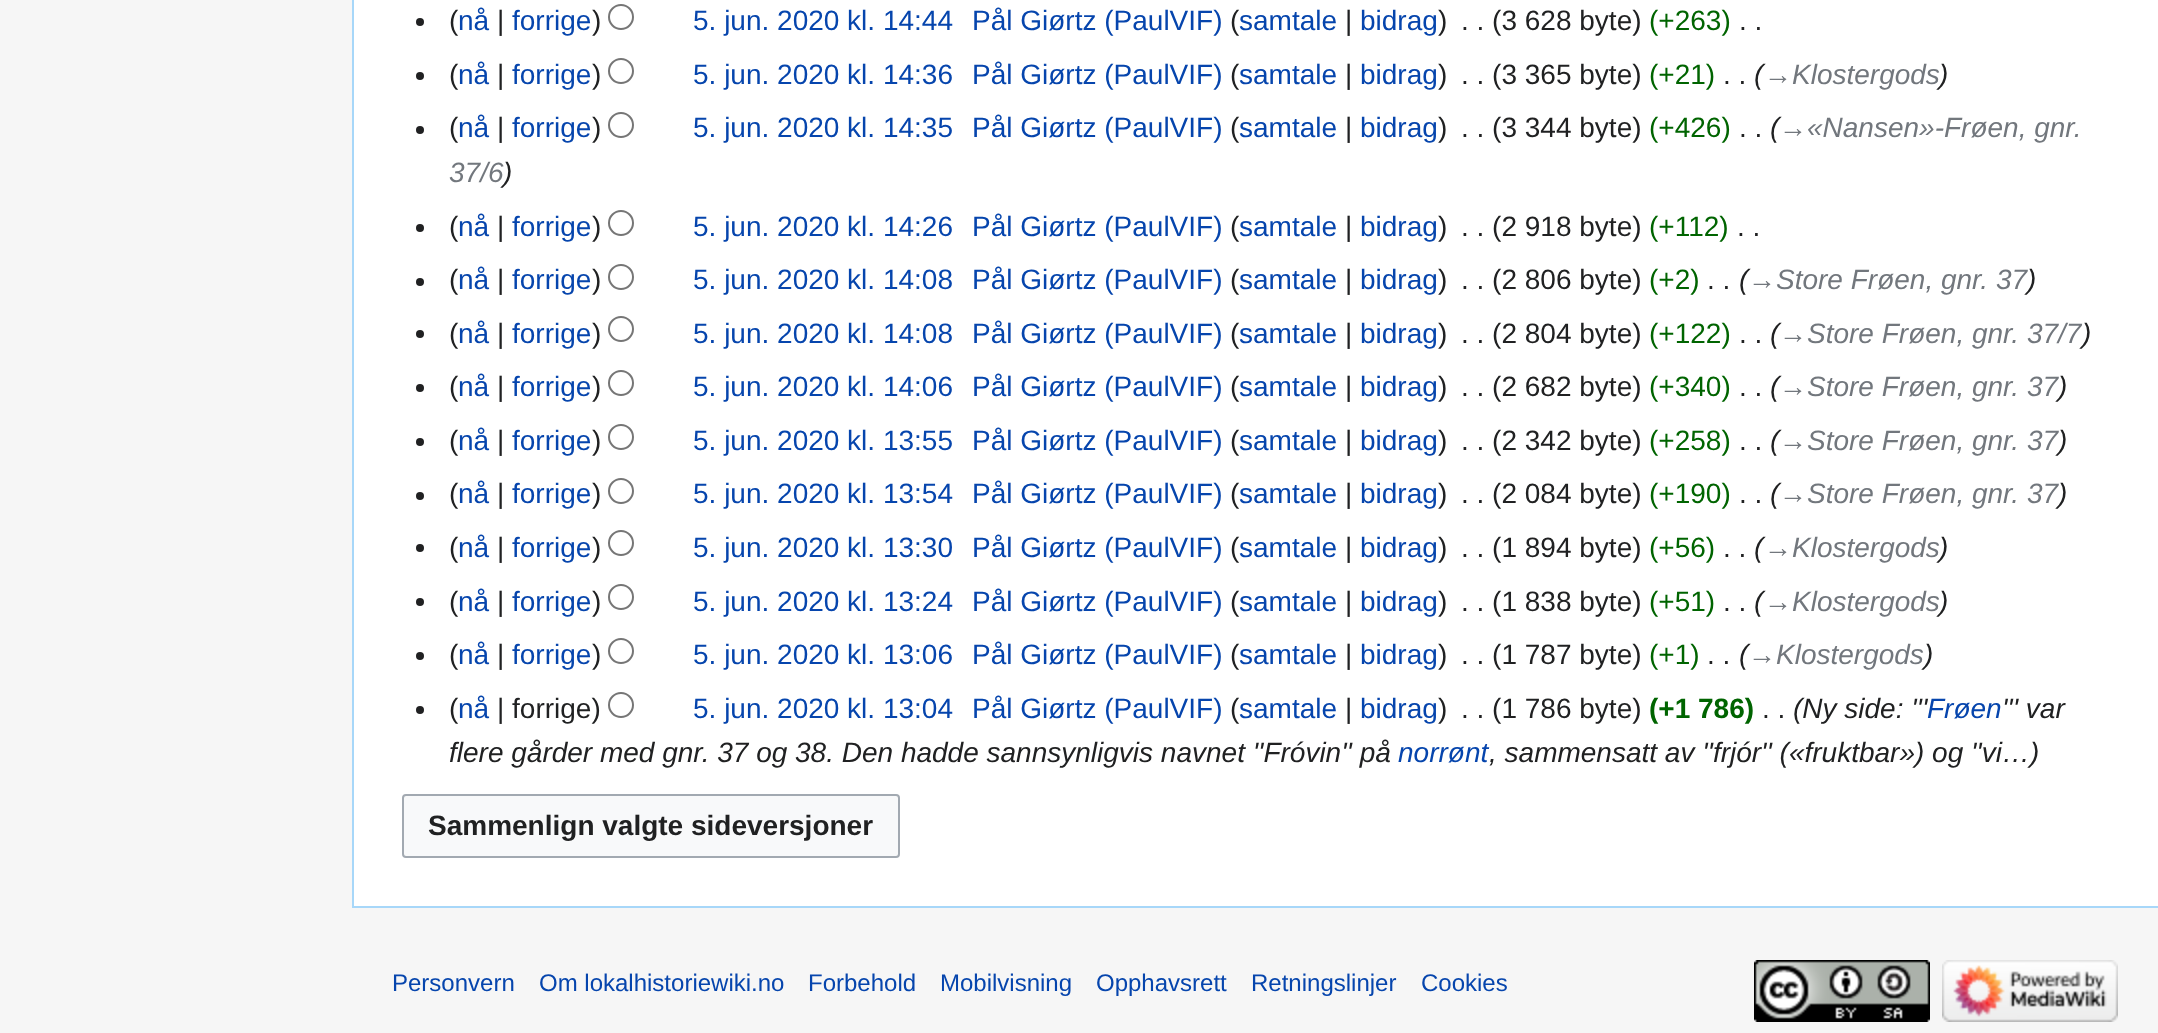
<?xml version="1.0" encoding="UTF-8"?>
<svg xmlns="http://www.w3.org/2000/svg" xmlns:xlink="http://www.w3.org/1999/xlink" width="2158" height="1033">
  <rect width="100%" height="100%" fill="#f6f6f6" />
  <rect x="354" width="1804" height="906" fill="#ffffff" />
  <rect x="352" y="906" width="1806" height="2" fill="#a7d7f9" />
  <rect x="352" width="2" height="908" fill="#a7d7f9" />
  <circle cx="420" cy="22" r="4" fill="#202122" />
  <circle cx="621" cy="17" r="12" fill="none" stroke="#767676" stroke-width="2" />
  <circle cx="420" cy="76" r="4" fill="#202122" />
  <circle cx="621" cy="71" r="12" fill="none" stroke="#767676" stroke-width="2" />
  <circle cx="420" cy="130" r="4" fill="#202122" />
  <circle cx="621" cy="125" r="12" fill="none" stroke="#767676" stroke-width="2" />
  <circle cx="420" cy="228" r="4" fill="#202122" />
  <circle cx="621" cy="223" r="12" fill="none" stroke="#767676" stroke-width="2" />
  <circle cx="420" cy="282" r="4" fill="#202122" />
  <circle cx="621" cy="277" r="12" fill="none" stroke="#767676" stroke-width="2" />
  <circle cx="420" cy="334" r="4" fill="#202122" />
  <circle cx="621" cy="329" r="12" fill="none" stroke="#767676" stroke-width="2" />
  <circle cx="420" cy="388" r="4" fill="#202122" />
  <circle cx="621" cy="383" r="12" fill="none" stroke="#767676" stroke-width="2" />
  <circle cx="420" cy="442" r="4" fill="#202122" />
  <circle cx="621" cy="437" r="12" fill="none" stroke="#767676" stroke-width="2" />
  <circle cx="420" cy="496" r="4" fill="#202122" />
  <circle cx="621" cy="491" r="12" fill="none" stroke="#767676" stroke-width="2" />
  <circle cx="420" cy="548" r="4" fill="#202122" />
  <circle cx="621" cy="543" r="12" fill="none" stroke="#767676" stroke-width="2" />
  <circle cx="420" cy="602" r="4" fill="#202122" />
  <circle cx="621" cy="597" r="12" fill="none" stroke="#767676" stroke-width="2" />
  <circle cx="420" cy="656" r="4" fill="#202122" />
  <circle cx="621" cy="651" r="12" fill="none" stroke="#767676" stroke-width="2" />
  <circle cx="420" cy="710" r="4" fill="#202122" />
  <circle cx="621" cy="705" r="12" fill="none" stroke="#767676" stroke-width="2" />
  <rect x="403" y="795" width="496" height="62" rx="3" fill="#f8f9fa" stroke="#a2a9b1" stroke-width="2" />
  <image x="1754" y="960" width="176" height="62" xlink:href="image1.png" />
  <image x="1942" y="960" width="176" height="62" xlink:href="image2.png" />
  <text x="449" y="30" style="font-family: Liberation Sans; font-size: 28px; fill: #202122">(</text>
  <text x="458" y="30" style="font-family: Liberation Sans; font-size: 28px; fill: #0645ad">nå</text>
  <text x="497" y="30" style="font-family: Liberation Sans; font-size: 28px; fill: #202122">|</text>
  <text x="512" y="30" style="font-family: Liberation Sans; font-size: 28px; fill: #0645ad">forrige</text>
  <text x="592" y="30" style="font-family: Liberation Sans; font-size: 28px; fill: #202122">)</text>
  <text x="693" y="30" style="font-family: Liberation Sans; font-size: 28px; fill: #0645ad">5. jun. 2020 kl. 14:44</text>
  <text x="972" y="30" style="font-family: Liberation Sans; font-size: 28px; fill: #0645ad">Pål Giørtz (PaulVIF)</text>
  <text x="1230" y="30" style="font-family: Liberation Sans; font-size: 28px; fill: #202122">(</text>
  <text x="1239" y="30" style="font-family: Liberation Sans; font-size: 28px; fill: #0645ad">samtale</text>
  <text x="1345" y="30" style="font-family: Liberation Sans; font-size: 28px; fill: #202122">|</text>
  <text x="1360" y="30" style="font-family: Liberation Sans; font-size: 28px; fill: #0645ad">bidrag</text>
  <text x="1438" y="30" style="font-family: Liberation Sans; font-size: 28px; fill: #202122">)</text>
  <text x="1461" y="30" style="font-family: Liberation Sans; font-size: 28px; fill: #202122">. . (3 628 byte)</text>
  <text x="1649" y="30" style="font-family: Liberation Sans; font-size: 28px; fill: #006400">(+263)</text>
  <text x="1739" y="30" style="font-family: Liberation Sans; font-size: 28px; fill: #202122">. .</text>
  <text x="449" y="84" style="font-family: Liberation Sans; font-size: 28px; fill: #202122">(</text>
  <text x="458" y="84" style="font-family: Liberation Sans; font-size: 28px; fill: #0645ad">nå</text>
  <text x="497" y="84" style="font-family: Liberation Sans; font-size: 28px; fill: #202122">|</text>
  <text x="512" y="84" style="font-family: Liberation Sans; font-size: 28px; fill: #0645ad">forrige</text>
  <text x="592" y="84" style="font-family: Liberation Sans; font-size: 28px; fill: #202122">)</text>
  <text x="693" y="84" style="font-family: Liberation Sans; font-size: 28px; fill: #0645ad">5. jun. 2020 kl. 14:36</text>
  <text x="972" y="84" style="font-family: Liberation Sans; font-size: 28px; fill: #0645ad">Pål Giørtz (PaulVIF)</text>
  <text x="1230" y="84" style="font-family: Liberation Sans; font-size: 28px; fill: #202122">(</text>
  <text x="1239" y="84" style="font-family: Liberation Sans; font-size: 28px; fill: #0645ad">samtale</text>
  <text x="1345" y="84" style="font-family: Liberation Sans; font-size: 28px; fill: #202122">|</text>
  <text x="1360" y="84" style="font-family: Liberation Sans; font-size: 28px; fill: #0645ad">bidrag</text>
  <text x="1438" y="84" style="font-family: Liberation Sans; font-size: 28px; fill: #202122">)</text>
  <text x="1461" y="84" style="font-family: Liberation Sans; font-size: 28px; fill: #202122">. . (3 365 byte)</text>
  <text x="1649" y="84" style="font-family: Liberation Sans; font-size: 28px; fill: #006400">(+21)</text>
  <text x="1754" y="84" style="font-family: Liberation Sans; font-size: 28px; font-style: italic; fill: #202122">(</text>
  <text x="1764" y="84" style="font-family: Liberation Sans; font-size: 28px; font-style: italic; fill: #72777d">→Klostergods</text>
  <text x="1939" y="84" style="font-family: Liberation Sans; font-size: 28px; font-style: italic; fill: #202122">)</text>
  <text x="1723" y="84" style="font-family: Liberation Sans; font-size: 28px; fill: #202122">. .</text>
  <text x="449" y="137" style="font-family: Liberation Sans; font-size: 28px; fill: #202122">(</text>
  <text x="458" y="137" style="font-family: Liberation Sans; font-size: 28px; fill: #0645ad">nå</text>
  <text x="497" y="137" style="font-family: Liberation Sans; font-size: 28px; fill: #202122">|</text>
  <text x="512" y="137" style="font-family: Liberation Sans; font-size: 28px; fill: #0645ad">forrige</text>
  <text x="592" y="137" style="font-family: Liberation Sans; font-size: 28px; fill: #202122">)</text>
  <text x="693" y="137" style="font-family: Liberation Sans; font-size: 28px; fill: #0645ad">5. jun. 2020 kl. 14:35</text>
  <text x="972" y="137" style="font-family: Liberation Sans; font-size: 28px; fill: #0645ad">Pål Giørtz (PaulVIF)</text>
  <text x="1230" y="137" style="font-family: Liberation Sans; font-size: 28px; fill: #202122">(</text>
  <text x="1239" y="137" style="font-family: Liberation Sans; font-size: 28px; fill: #0645ad">samtale</text>
  <text x="1345" y="137" style="font-family: Liberation Sans; font-size: 28px; fill: #202122">|</text>
  <text x="1360" y="137" style="font-family: Liberation Sans; font-size: 28px; fill: #0645ad">bidrag</text>
  <text x="1438" y="137" style="font-family: Liberation Sans; font-size: 28px; fill: #202122">)</text>
  <text x="1461" y="137" style="font-family: Liberation Sans; font-size: 28px; fill: #202122">. . (3 344 byte)</text>
  <text x="1649" y="137" style="font-family: Liberation Sans; font-size: 28px; fill: #006400">(+426)</text>
  <text x="1770" y="137" style="font-family: Liberation Sans; font-size: 28px; font-style: italic; fill: #202122">(</text>
  <text x="1779" y="137" style="font-family: Liberation Sans; font-size: 28px; font-style: italic; fill: #72777d">→«Nansen»-Frøen, gnr.</text>
  <text x="1739" y="137" style="font-family: Liberation Sans; font-size: 28px; fill: #202122">. .</text>
  <text x="449" y="182" style="font-family: Liberation Sans; font-size: 28px; font-style: italic; fill: #72777d">37/6</text>
  <text x="503" y="182" style="font-family: Liberation Sans; font-size: 28px; font-style: italic; fill: #202122">)</text>
  <text x="449" y="236" style="font-family: Liberation Sans; font-size: 28px; fill: #202122">(</text>
  <text x="458" y="236" style="font-family: Liberation Sans; font-size: 28px; fill: #0645ad">nå</text>
  <text x="497" y="236" style="font-family: Liberation Sans; font-size: 28px; fill: #202122">|</text>
  <text x="512" y="236" style="font-family: Liberation Sans; font-size: 28px; fill: #0645ad">forrige</text>
  <text x="592" y="236" style="font-family: Liberation Sans; font-size: 28px; fill: #202122">)</text>
  <text x="693" y="236" style="font-family: Liberation Sans; font-size: 28px; fill: #0645ad">5. jun. 2020 kl. 14:26</text>
  <text x="972" y="236" style="font-family: Liberation Sans; font-size: 28px; fill: #0645ad">Pål Giørtz (PaulVIF)</text>
  <text x="1230" y="236" style="font-family: Liberation Sans; font-size: 28px; fill: #202122">(</text>
  <text x="1239" y="236" style="font-family: Liberation Sans; font-size: 28px; fill: #0645ad">samtale</text>
  <text x="1345" y="236" style="font-family: Liberation Sans; font-size: 28px; fill: #202122">|</text>
  <text x="1360" y="236" style="font-family: Liberation Sans; font-size: 28px; fill: #0645ad">bidrag</text>
  <text x="1438" y="236" style="font-family: Liberation Sans; font-size: 28px; fill: #202122">)</text>
  <text x="1461" y="236" style="font-family: Liberation Sans; font-size: 28px; fill: #202122">. . (2 918 byte)</text>
  <text x="1649" y="236" style="font-family: Liberation Sans; font-size: 28px; fill: #006400">(+112)</text>
  <text x="1737" y="236" style="font-family: Liberation Sans; font-size: 28px; fill: #202122">. .</text>
  <text x="449" y="289" style="font-family: Liberation Sans; font-size: 28px; fill: #202122">(</text>
  <text x="458" y="289" style="font-family: Liberation Sans; font-size: 28px; fill: #0645ad">nå</text>
  <text x="497" y="289" style="font-family: Liberation Sans; font-size: 28px; fill: #202122">|</text>
  <text x="512" y="289" style="font-family: Liberation Sans; font-size: 28px; fill: #0645ad">forrige</text>
  <text x="592" y="289" style="font-family: Liberation Sans; font-size: 28px; fill: #202122">)</text>
  <text x="693" y="289" style="font-family: Liberation Sans; font-size: 28px; fill: #0645ad">5. jun. 2020 kl. 14:08</text>
  <text x="972" y="289" style="font-family: Liberation Sans; font-size: 28px; fill: #0645ad">Pål Giørtz (PaulVIF)</text>
  <text x="1230" y="289" style="font-family: Liberation Sans; font-size: 28px; fill: #202122">(</text>
  <text x="1239" y="289" style="font-family: Liberation Sans; font-size: 28px; fill: #0645ad">samtale</text>
  <text x="1345" y="289" style="font-family: Liberation Sans; font-size: 28px; fill: #202122">|</text>
  <text x="1360" y="289" style="font-family: Liberation Sans; font-size: 28px; fill: #0645ad">bidrag</text>
  <text x="1438" y="289" style="font-family: Liberation Sans; font-size: 28px; fill: #202122">)</text>
  <text x="1461" y="289" style="font-family: Liberation Sans; font-size: 28px; fill: #202122">. . (2 806 byte)</text>
  <text x="1649" y="289" style="font-family: Liberation Sans; font-size: 28px; fill: #006400">(+2)</text>
  <text x="1739" y="289" style="font-family: Liberation Sans; font-size: 28px; font-style: italic; fill: #202122">(</text>
  <text x="1748" y="289" style="font-family: Liberation Sans; font-size: 28px; font-style: italic; fill: #72777d">→Store Frøen, gnr. 37</text>
  <text x="2027" y="289" style="font-family: Liberation Sans; font-size: 28px; font-style: italic; fill: #202122">)</text>
  <text x="1707" y="289" style="font-family: Liberation Sans; font-size: 28px; fill: #202122">. .</text>
  <text x="449" y="343" style="font-family: Liberation Sans; font-size: 28px; fill: #202122">(</text>
  <text x="458" y="343" style="font-family: Liberation Sans; font-size: 28px; fill: #0645ad">nå</text>
  <text x="497" y="343" style="font-family: Liberation Sans; font-size: 28px; fill: #202122">|</text>
  <text x="512" y="343" style="font-family: Liberation Sans; font-size: 28px; fill: #0645ad">forrige</text>
  <text x="592" y="343" style="font-family: Liberation Sans; font-size: 28px; fill: #202122">)</text>
  <text x="693" y="343" style="font-family: Liberation Sans; font-size: 28px; fill: #0645ad">5. jun. 2020 kl. 14:08</text>
  <text x="972" y="343" style="font-family: Liberation Sans; font-size: 28px; fill: #0645ad">Pål Giørtz (PaulVIF)</text>
  <text x="1230" y="343" style="font-family: Liberation Sans; font-size: 28px; fill: #202122">(</text>
  <text x="1239" y="343" style="font-family: Liberation Sans; font-size: 28px; fill: #0645ad">samtale</text>
  <text x="1345" y="343" style="font-family: Liberation Sans; font-size: 28px; fill: #202122">|</text>
  <text x="1360" y="343" style="font-family: Liberation Sans; font-size: 28px; fill: #0645ad">bidrag</text>
  <text x="1438" y="343" style="font-family: Liberation Sans; font-size: 28px; fill: #202122">)</text>
  <text x="1461" y="343" style="font-family: Liberation Sans; font-size: 28px; fill: #202122">. . (2 804 byte)</text>
  <text x="1649" y="343" style="font-family: Liberation Sans; font-size: 28px; fill: #006400">(+122)</text>
  <text x="1770" y="343" style="font-family: Liberation Sans; font-size: 28px; font-style: italic; fill: #202122">(</text>
  <text x="1779" y="343" style="font-family: Liberation Sans; font-size: 28px; font-style: italic; fill: #72777d">→Store Frøen, gnr. 37/7</text>
  <text x="2082" y="343" style="font-family: Liberation Sans; font-size: 28px; font-style: italic; fill: #202122">)</text>
  <text x="1739" y="343" style="font-family: Liberation Sans; font-size: 28px; fill: #202122">. .</text>
  <text x="449" y="396" style="font-family: Liberation Sans; font-size: 28px; fill: #202122">(</text>
  <text x="458" y="396" style="font-family: Liberation Sans; font-size: 28px; fill: #0645ad">nå</text>
  <text x="497" y="396" style="font-family: Liberation Sans; font-size: 28px; fill: #202122">|</text>
  <text x="512" y="396" style="font-family: Liberation Sans; font-size: 28px; fill: #0645ad">forrige</text>
  <text x="592" y="396" style="font-family: Liberation Sans; font-size: 28px; fill: #202122">)</text>
  <text x="693" y="396" style="font-family: Liberation Sans; font-size: 28px; fill: #0645ad">5. jun. 2020 kl. 14:06</text>
  <text x="972" y="396" style="font-family: Liberation Sans; font-size: 28px; fill: #0645ad">Pål Giørtz (PaulVIF)</text>
  <text x="1230" y="396" style="font-family: Liberation Sans; font-size: 28px; fill: #202122">(</text>
  <text x="1239" y="396" style="font-family: Liberation Sans; font-size: 28px; fill: #0645ad">samtale</text>
  <text x="1345" y="396" style="font-family: Liberation Sans; font-size: 28px; fill: #202122">|</text>
  <text x="1360" y="396" style="font-family: Liberation Sans; font-size: 28px; fill: #0645ad">bidrag</text>
  <text x="1438" y="396" style="font-family: Liberation Sans; font-size: 28px; fill: #202122">)</text>
  <text x="1461" y="396" style="font-family: Liberation Sans; font-size: 28px; fill: #202122">. . (2 682 byte)</text>
  <text x="1649" y="396" style="font-family: Liberation Sans; font-size: 28px; fill: #006400">(+340)</text>
  <text x="1770" y="396" style="font-family: Liberation Sans; font-size: 28px; font-style: italic; fill: #202122">(</text>
  <text x="1779" y="396" style="font-family: Liberation Sans; font-size: 28px; font-style: italic; fill: #72777d">→Store Frøen, gnr. 37</text>
  <text x="2058" y="396" style="font-family: Liberation Sans; font-size: 28px; font-style: italic; fill: #202122">)</text>
  <text x="1739" y="396" style="font-family: Liberation Sans; font-size: 28px; fill: #202122">. .</text>
  <text x="449" y="450" style="font-family: Liberation Sans; font-size: 28px; fill: #202122">(</text>
  <text x="458" y="450" style="font-family: Liberation Sans; font-size: 28px; fill: #0645ad">nå</text>
  <text x="497" y="450" style="font-family: Liberation Sans; font-size: 28px; fill: #202122">|</text>
  <text x="512" y="450" style="font-family: Liberation Sans; font-size: 28px; fill: #0645ad">forrige</text>
  <text x="592" y="450" style="font-family: Liberation Sans; font-size: 28px; fill: #202122">)</text>
  <text x="693" y="450" style="font-family: Liberation Sans; font-size: 28px; fill: #0645ad">5. jun. 2020 kl. 13:55</text>
  <text x="972" y="450" style="font-family: Liberation Sans; font-size: 28px; fill: #0645ad">Pål Giørtz (PaulVIF)</text>
  <text x="1230" y="450" style="font-family: Liberation Sans; font-size: 28px; fill: #202122">(</text>
  <text x="1239" y="450" style="font-family: Liberation Sans; font-size: 28px; fill: #0645ad">samtale</text>
  <text x="1345" y="450" style="font-family: Liberation Sans; font-size: 28px; fill: #202122">|</text>
  <text x="1360" y="450" style="font-family: Liberation Sans; font-size: 28px; fill: #0645ad">bidrag</text>
  <text x="1438" y="450" style="font-family: Liberation Sans; font-size: 28px; fill: #202122">)</text>
  <text x="1461" y="450" style="font-family: Liberation Sans; font-size: 28px; fill: #202122">. . (2 342 byte)</text>
  <text x="1649" y="450" style="font-family: Liberation Sans; font-size: 28px; fill: #006400">(+258)</text>
  <text x="1770" y="450" style="font-family: Liberation Sans; font-size: 28px; font-style: italic; fill: #202122">(</text>
  <text x="1779" y="450" style="font-family: Liberation Sans; font-size: 28px; font-style: italic; fill: #72777d">→Store Frøen, gnr. 37</text>
  <text x="2058" y="450" style="font-family: Liberation Sans; font-size: 28px; font-style: italic; fill: #202122">)</text>
  <text x="1739" y="450" style="font-family: Liberation Sans; font-size: 28px; fill: #202122">. .</text>
  <text x="449" y="503" style="font-family: Liberation Sans; font-size: 28px; fill: #202122">(</text>
  <text x="458" y="503" style="font-family: Liberation Sans; font-size: 28px; fill: #0645ad">nå</text>
  <text x="497" y="503" style="font-family: Liberation Sans; font-size: 28px; fill: #202122">|</text>
  <text x="512" y="503" style="font-family: Liberation Sans; font-size: 28px; fill: #0645ad">forrige</text>
  <text x="592" y="503" style="font-family: Liberation Sans; font-size: 28px; fill: #202122">)</text>
  <text x="693" y="503" style="font-family: Liberation Sans; font-size: 28px; fill: #0645ad">5. jun. 2020 kl. 13:54</text>
  <text x="972" y="503" style="font-family: Liberation Sans; font-size: 28px; fill: #0645ad">Pål Giørtz (PaulVIF)</text>
  <text x="1230" y="503" style="font-family: Liberation Sans; font-size: 28px; fill: #202122">(</text>
  <text x="1239" y="503" style="font-family: Liberation Sans; font-size: 28px; fill: #0645ad">samtale</text>
  <text x="1345" y="503" style="font-family: Liberation Sans; font-size: 28px; fill: #202122">|</text>
  <text x="1360" y="503" style="font-family: Liberation Sans; font-size: 28px; fill: #0645ad">bidrag</text>
  <text x="1438" y="503" style="font-family: Liberation Sans; font-size: 28px; fill: #202122">)</text>
  <text x="1461" y="503" style="font-family: Liberation Sans; font-size: 28px; fill: #202122">. . (2 084 byte)</text>
  <text x="1649" y="503" style="font-family: Liberation Sans; font-size: 28px; fill: #006400">(+190)</text>
  <text x="1770" y="503" style="font-family: Liberation Sans; font-size: 28px; font-style: italic; fill: #202122">(</text>
  <text x="1779" y="503" style="font-family: Liberation Sans; font-size: 28px; font-style: italic; fill: #72777d">→Store Frøen, gnr. 37</text>
  <text x="2058" y="503" style="font-family: Liberation Sans; font-size: 28px; font-style: italic; fill: #202122">)</text>
  <text x="1739" y="503" style="font-family: Liberation Sans; font-size: 28px; fill: #202122">. .</text>
  <text x="449" y="557" style="font-family: Liberation Sans; font-size: 28px; fill: #202122">(</text>
  <text x="458" y="557" style="font-family: Liberation Sans; font-size: 28px; fill: #0645ad">nå</text>
  <text x="497" y="557" style="font-family: Liberation Sans; font-size: 28px; fill: #202122">|</text>
  <text x="512" y="557" style="font-family: Liberation Sans; font-size: 28px; fill: #0645ad">forrige</text>
  <text x="592" y="557" style="font-family: Liberation Sans; font-size: 28px; fill: #202122">)</text>
  <text x="693" y="557" style="font-family: Liberation Sans; font-size: 28px; fill: #0645ad">5. jun. 2020 kl. 13:30</text>
  <text x="972" y="557" style="font-family: Liberation Sans; font-size: 28px; fill: #0645ad">Pål Giørtz (PaulVIF)</text>
  <text x="1230" y="557" style="font-family: Liberation Sans; font-size: 28px; fill: #202122">(</text>
  <text x="1239" y="557" style="font-family: Liberation Sans; font-size: 28px; fill: #0645ad">samtale</text>
  <text x="1345" y="557" style="font-family: Liberation Sans; font-size: 28px; fill: #202122">|</text>
  <text x="1360" y="557" style="font-family: Liberation Sans; font-size: 28px; fill: #0645ad">bidrag</text>
  <text x="1438" y="557" style="font-family: Liberation Sans; font-size: 28px; fill: #202122">)</text>
  <text x="1461" y="557" style="font-family: Liberation Sans; font-size: 28px; fill: #202122">. . (1 894 byte)</text>
  <text x="1649" y="557" style="font-family: Liberation Sans; font-size: 28px; fill: #006400">(+56)</text>
  <text x="1754" y="557" style="font-family: Liberation Sans; font-size: 28px; font-style: italic; fill: #202122">(</text>
  <text x="1764" y="557" style="font-family: Liberation Sans; font-size: 28px; font-style: italic; fill: #72777d">→Klostergods</text>
  <text x="1939" y="557" style="font-family: Liberation Sans; font-size: 28px; font-style: italic; fill: #202122">)</text>
  <text x="1723" y="557" style="font-family: Liberation Sans; font-size: 28px; fill: #202122">. .</text>
  <text x="449" y="611" style="font-family: Liberation Sans; font-size: 28px; fill: #202122">(</text>
  <text x="458" y="611" style="font-family: Liberation Sans; font-size: 28px; fill: #0645ad">nå</text>
  <text x="497" y="611" style="font-family: Liberation Sans; font-size: 28px; fill: #202122">|</text>
  <text x="512" y="611" style="font-family: Liberation Sans; font-size: 28px; fill: #0645ad">forrige</text>
  <text x="592" y="611" style="font-family: Liberation Sans; font-size: 28px; fill: #202122">)</text>
  <text x="693" y="611" style="font-family: Liberation Sans; font-size: 28px; fill: #0645ad">5. jun. 2020 kl. 13:24</text>
  <text x="972" y="611" style="font-family: Liberation Sans; font-size: 28px; fill: #0645ad">Pål Giørtz (PaulVIF)</text>
  <text x="1230" y="611" style="font-family: Liberation Sans; font-size: 28px; fill: #202122">(</text>
  <text x="1239" y="611" style="font-family: Liberation Sans; font-size: 28px; fill: #0645ad">samtale</text>
  <text x="1345" y="611" style="font-family: Liberation Sans; font-size: 28px; fill: #202122">|</text>
  <text x="1360" y="611" style="font-family: Liberation Sans; font-size: 28px; fill: #0645ad">bidrag</text>
  <text x="1438" y="611" style="font-family: Liberation Sans; font-size: 28px; fill: #202122">)</text>
  <text x="1461" y="611" style="font-family: Liberation Sans; font-size: 28px; fill: #202122">. . (1 838 byte)</text>
  <text x="1649" y="611" style="font-family: Liberation Sans; font-size: 28px; fill: #006400">(+51)</text>
  <text x="1754" y="611" style="font-family: Liberation Sans; font-size: 28px; font-style: italic; fill: #202122">(</text>
  <text x="1764" y="611" style="font-family: Liberation Sans; font-size: 28px; font-style: italic; fill: #72777d">→Klostergods</text>
  <text x="1939" y="611" style="font-family: Liberation Sans; font-size: 28px; font-style: italic; fill: #202122">)</text>
  <text x="1723" y="611" style="font-family: Liberation Sans; font-size: 28px; fill: #202122">. .</text>
  <text x="449" y="664" style="font-family: Liberation Sans; font-size: 28px; fill: #202122">(</text>
  <text x="458" y="664" style="font-family: Liberation Sans; font-size: 28px; fill: #0645ad">nå</text>
  <text x="497" y="664" style="font-family: Liberation Sans; font-size: 28px; fill: #202122">|</text>
  <text x="512" y="664" style="font-family: Liberation Sans; font-size: 28px; fill: #0645ad">forrige</text>
  <text x="592" y="664" style="font-family: Liberation Sans; font-size: 28px; fill: #202122">)</text>
  <text x="693" y="664" style="font-family: Liberation Sans; font-size: 28px; fill: #0645ad">5. jun. 2020 kl. 13:06</text>
  <text x="972" y="664" style="font-family: Liberation Sans; font-size: 28px; fill: #0645ad">Pål Giørtz (PaulVIF)</text>
  <text x="1230" y="664" style="font-family: Liberation Sans; font-size: 28px; fill: #202122">(</text>
  <text x="1239" y="664" style="font-family: Liberation Sans; font-size: 28px; fill: #0645ad">samtale</text>
  <text x="1345" y="664" style="font-family: Liberation Sans; font-size: 28px; fill: #202122">|</text>
  <text x="1360" y="664" style="font-family: Liberation Sans; font-size: 28px; fill: #0645ad">bidrag</text>
  <text x="1438" y="664" style="font-family: Liberation Sans; font-size: 28px; fill: #202122">)</text>
  <text x="1461" y="664" style="font-family: Liberation Sans; font-size: 28px; fill: #202122">. . (1 787 byte)</text>
  <text x="1649" y="664" style="font-family: Liberation Sans; font-size: 28px; fill: #006400">(+1)</text>
  <text x="1739" y="664" style="font-family: Liberation Sans; font-size: 28px; font-style: italic; fill: #202122">(</text>
  <text x="1748" y="664" style="font-family: Liberation Sans; font-size: 28px; font-style: italic; fill: #72777d">→Klostergods</text>
  <text x="1924" y="664" style="font-family: Liberation Sans; font-size: 28px; font-style: italic; fill: #202122">)</text>
  <text x="1707" y="664" style="font-family: Liberation Sans; font-size: 28px; fill: #202122">. .</text>
  <text x="449" y="718" style="font-family: Liberation Sans; font-size: 28px; fill: #202122">(</text>
  <text x="458" y="718" style="font-family: Liberation Sans; font-size: 28px; fill: #0645ad">nå</text>
  <text x="497" y="718" style="font-family: Liberation Sans; font-size: 28px; fill: #202122">| forrige)</text>
  <text x="693" y="718" style="font-family: Liberation Sans; font-size: 28px; fill: #0645ad">5. jun. 2020 kl. 13:04</text>
  <text x="972" y="718" style="font-family: Liberation Sans; font-size: 28px; fill: #0645ad">Pål Giørtz (PaulVIF)</text>
  <text x="1230" y="718" style="font-family: Liberation Sans; font-size: 28px; fill: #202122">(</text>
  <text x="1239" y="718" style="font-family: Liberation Sans; font-size: 28px; fill: #0645ad">samtale</text>
  <text x="1345" y="718" style="font-family: Liberation Sans; font-size: 28px; fill: #202122">|</text>
  <text x="1360" y="718" style="font-family: Liberation Sans; font-size: 28px; fill: #0645ad">bidrag</text>
  <text x="1438" y="718" style="font-family: Liberation Sans; font-size: 28px; fill: #202122">)</text>
  <text x="1461" y="718" style="font-family: Liberation Sans; font-size: 28px; fill: #202122">. . (1 786 byte)</text>
  <text x="1649" y="718" style="font-family: Liberation Sans; font-size: 28px; font-weight: bold; fill: #006400">(+1 786)</text>
  <text x="1793" y="718" style="font-family: Liberation Sans; font-size: 28px; font-style: italic; fill: #202122">(Ny side: '''</text>
  <text x="1927" y="718" style="font-family: Liberation Sans; font-size: 28px; font-style: italic; fill: #0645ad">Frøen</text>
  <text x="2002" y="718" style="font-family: Liberation Sans; font-size: 28px; font-style: italic; fill: #202122">''' var</text>
  <text x="1762" y="718" style="font-family: Liberation Sans; font-size: 28px; fill: #202122">. .</text>
  <text x="449" y="762" style="font-family: Liberation Sans; font-size: 28px; font-style: italic; fill: #202122">flere gårder med gnr. 37 og 38. Den hadde sannsynligvis navnet ''Fróvin'' på</text>
  <text x="1398" y="762" style="font-family: Liberation Sans; font-size: 28px; font-style: italic; fill: #0645ad">norrønt</text>
  <text x="1489" y="762" style="font-family: Liberation Sans; font-size: 28px; font-style: italic; fill: #202122">, sammensatt av ''frjór'' («fruktbar») og ''vi…)</text>
  <text x="428" y="835" style="font-family: Liberation Sans; font-size: 28px; font-weight: bold; fill: #202122">Sammenlign valgte sideversjoner</text>
  <text x="392" y="991" style="font-family: Liberation Sans; font-size: 24px; fill: #0645ad">Personvern</text>
  <text x="539" y="991" style="font-family: Liberation Sans; font-size: 24px; fill: #0645ad">Om lokalhistoriewiki.no</text>
  <text x="808" y="991" style="font-family: Liberation Sans; font-size: 24px; fill: #0645ad">Forbehold</text>
  <text x="940" y="991" style="font-family: Liberation Sans; font-size: 24px; fill: #0645ad">Mobilvisning</text>
  <text x="1096" y="991" style="font-family: Liberation Sans; font-size: 24px; fill: #0645ad">Opphavsrett</text>
  <text x="1251" y="991" style="font-family: Liberation Sans; font-size: 24px; fill: #0645ad">Retningslinjer</text>
  <text x="1421" y="991" style="font-family: Liberation Sans; font-size: 24px; fill: #0645ad">Cookies</text>
</svg>
